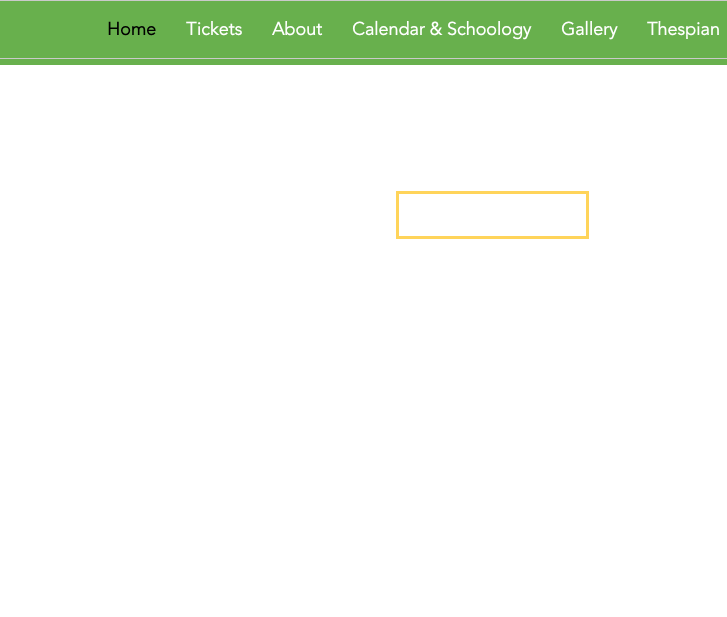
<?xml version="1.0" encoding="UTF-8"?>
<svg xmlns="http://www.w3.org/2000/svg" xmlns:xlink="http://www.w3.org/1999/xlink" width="727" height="617">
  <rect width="100%" height="100%" fill="#68b04d" />
  <rect width="727" height="1" fill="#cacaca" />
  <rect y="58" width="727" height="1" fill="#cacaca" />
  <rect y="65" width="727" height="552" fill="#ffffff" />
  <rect x="397.5" y="192.5" width="190" height="45" fill="none" stroke="#ffd45a" stroke-width="3" />
  <text x="107" y="35" style="font-family: 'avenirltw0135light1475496'; font-size: 18px; font-weight: bold; fill: #000000">Home</text>
  <text x="186" y="35" style="font-family: 'avenirltw0135light1475496'; font-size: 18px; font-weight: bold; fill: #ffffff">Tickets</text>
  <text x="272" y="35" style="font-family: 'avenirltw0135light1475496'; font-size: 18px; font-weight: bold; fill: #ffffff">About</text>
  <text x="352" y="35" style="font-family: 'avenirltw0135light1475496'; font-size: 18px; font-weight: bold; fill: #ffffff">Calendar &amp; Schoology</text>
  <text x="561" y="35" style="font-family: 'avenirltw0135light1475496'; font-size: 18px; font-weight: bold; fill: #ffffff">Gallery</text>
  <text x="647" y="35" style="font-family: 'avenirltw0135light1475496'; font-size: 18px; font-weight: bold; fill: #ffffff">Thespian</text>
</svg>
